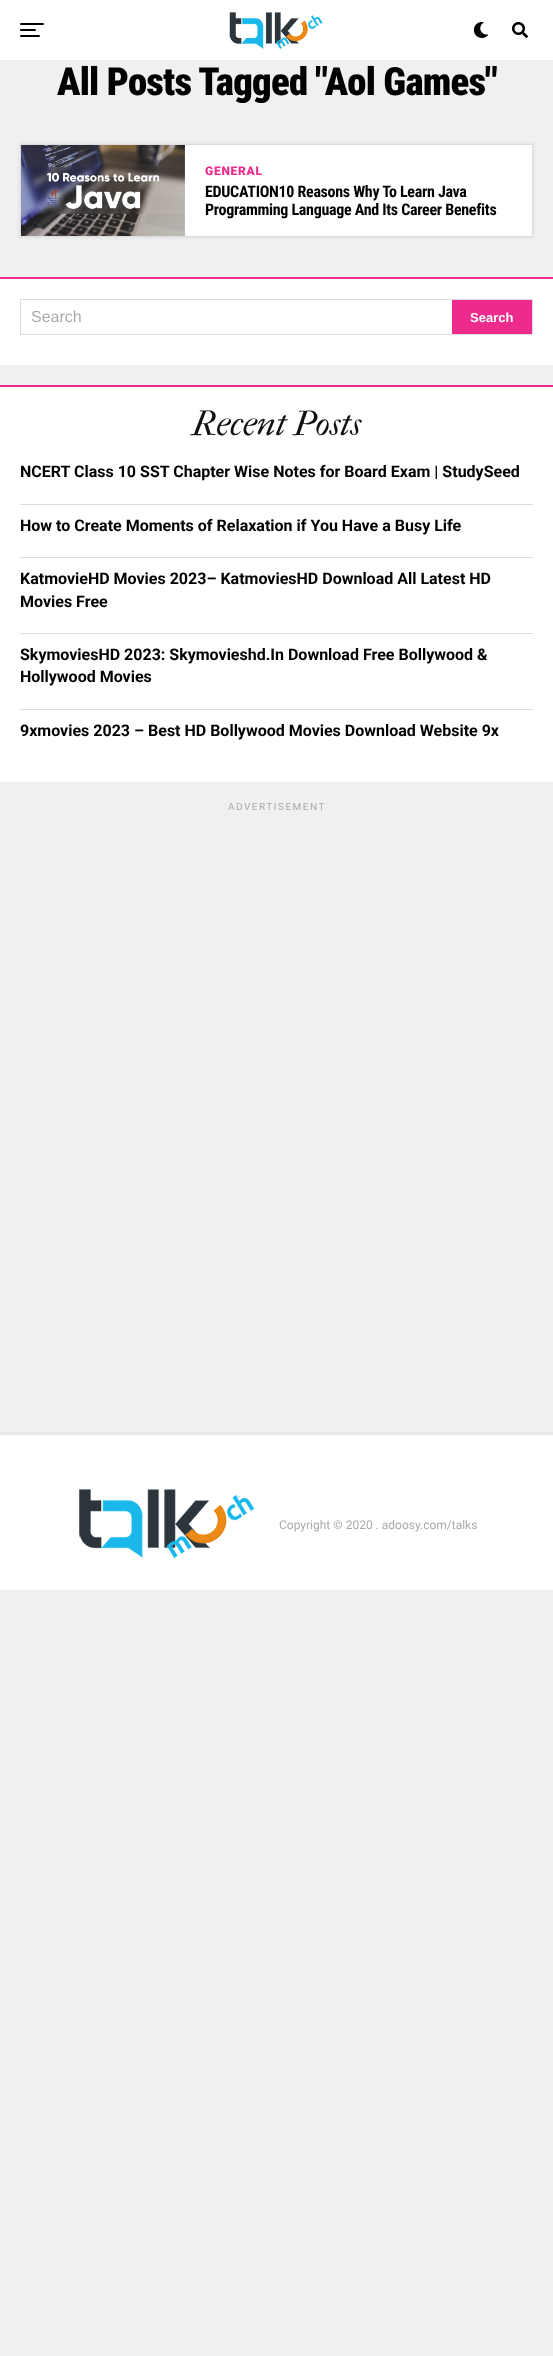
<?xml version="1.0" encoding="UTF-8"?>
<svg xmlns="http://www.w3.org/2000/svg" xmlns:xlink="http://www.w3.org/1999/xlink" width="553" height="2356">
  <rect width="100%" height="100%" fill="#f0f0f0" />
  <rect width="553" height="60" fill="#ffffff" />
  <rect x="20" y="23" width="24" height="2" rx="1" fill="#000000" />
  <rect x="20" y="29" width="16" height="2" rx="1" fill="#000000" />
  <rect x="20" y="35" width="20" height="2" rx="1" fill="#000000" />
  <image x="229" y="12" width="94" height="38" xlink:href="image1.png" />
  <image x="473" y="22" width="16" height="16" xlink:href="image2.png" />
  <image x="512" y="22" width="16" height="16" xlink:href="image3.png" />
  <rect x="19" y="143" width="515" height="95" fill="#000000" fill-opacity="0.06" filter="blur(1.5px)" />
  <rect x="184" y="145" width="348" height="91" fill="#ffffff" />
  <rect x="20.5" y="144.5" width="512" height="92" fill="none" stroke="#dddddd" />
  <image x="21" y="145" width="164" height="91" xlink:href="image4.png" />
  <rect y="279" width="553" height="86" fill="#ffffff" />
  <rect y="277" width="553" height="2" fill="#ec2b8c" />
  <rect x="20.5" y="299.5" width="512" height="35" fill="none" stroke="#dddddd" />
  <rect x="452" y="300" width="80" height="34" fill="#ec2b8c" />
  <rect y="387" width="553" height="395" fill="#ffffff" />
  <rect y="385" width="553" height="2" fill="#ec2b8c" />
  <rect x="20" y="504" width="513" height="1" fill="#dddddd" />
  <rect x="20" y="557" width="513" height="1" fill="#dddddd" />
  <rect x="20" y="633" width="513" height="1" fill="#dddddd" />
  <rect x="20" y="709" width="513" height="1" fill="#dddddd" />
  <rect y="1435" width="553" height="155" fill="#ffffff" />
  <rect y="1432" width="553" height="3" fill="#e9e9e9" />
  <image x="79" y="1489" width="176" height="70" xlink:href="image5.png" />
  <text x="57" y="95" style="font-family: Roboto Condensed; font-size: 38.75px; font-weight: 900; letter-spacing: -0.75px; fill: #000000">All Posts Tagged "Aol Games"</text>
  <text x="205" y="175" style="font-family: Roboto; font-size: 12px; font-weight: 900; letter-spacing: 0.75px; fill: #ec2b8c">GENERAL</text>
  <text x="205" y="197" style="font-family: Roboto Condensed; font-size: 16px; font-weight: bold; letter-spacing: -0.3px; fill: #000000">EDUCATION10 Reasons Why To Learn Java</text>
  <text x="205" y="215" style="font-family: Roboto Condensed; font-size: 16px; font-weight: bold; letter-spacing: -0.3px; fill: #000000">Programming Language And Its Career Benefits</text>
  <text x="31" y="322" style="font-family: Liberation Sans; font-size: 16px; fill: #aaaaaa">Search</text>
  <text x="470" y="322" style="font-family: Liberation Sans; font-size: 13px; font-weight: bold; fill: #ffffff">Search</text>
  <text x="192" y="435" style="font-family: IM FELL French Canon; font-size: 34px; font-style: italic; fill: #111111">Recent Posts</text>
  <text x="20" y="477" style="font-family: Roboto; font-size: 16px; font-weight: bold; fill: #000000">NCERT Class 10 SST Chapter Wise Notes for Board Exam | StudySeed</text>
  <text x="20" y="531" style="font-family: Roboto; font-size: 16px; font-weight: bold; fill: #000000">How to Create Moments of Relaxation if You Have a Busy Life</text>
  <text x="20" y="584" style="font-family: Roboto; font-size: 16px; font-weight: bold; fill: #000000">KatmovieHD Movies 2023– KatmoviesHD Download All Latest HD</text>
  <text x="20" y="607" style="font-family: Roboto; font-size: 16px; font-weight: bold; fill: #000000">Movies Free</text>
  <text x="20" y="660" style="font-family: Roboto; font-size: 16px; font-weight: bold; fill: #000000">SkymoviesHD 2023: Skymovieshd.In Download Free Bollywood &amp;</text>
  <text x="20" y="682" style="font-family: Roboto; font-size: 16px; font-weight: bold; fill: #000000">Hollywood Movies</text>
  <text x="20" y="736" style="font-family: Roboto; font-size: 16px; font-weight: bold; fill: #000000">9xmovies 2023 – Best HD Bollywood Movies Download Website 9x</text>
  <text x="228" y="810" style="font-family: Roboto; font-size: 10px; letter-spacing: 1.5px; fill: #aaaaaa">ADVERTISEMENT</text>
  <text x="279" y="1529" style="font-family: Roboto; font-size: 12px; fill: #aaaaaa">Copyright © 2020 . adoosy.com/talks</text>
</svg>
